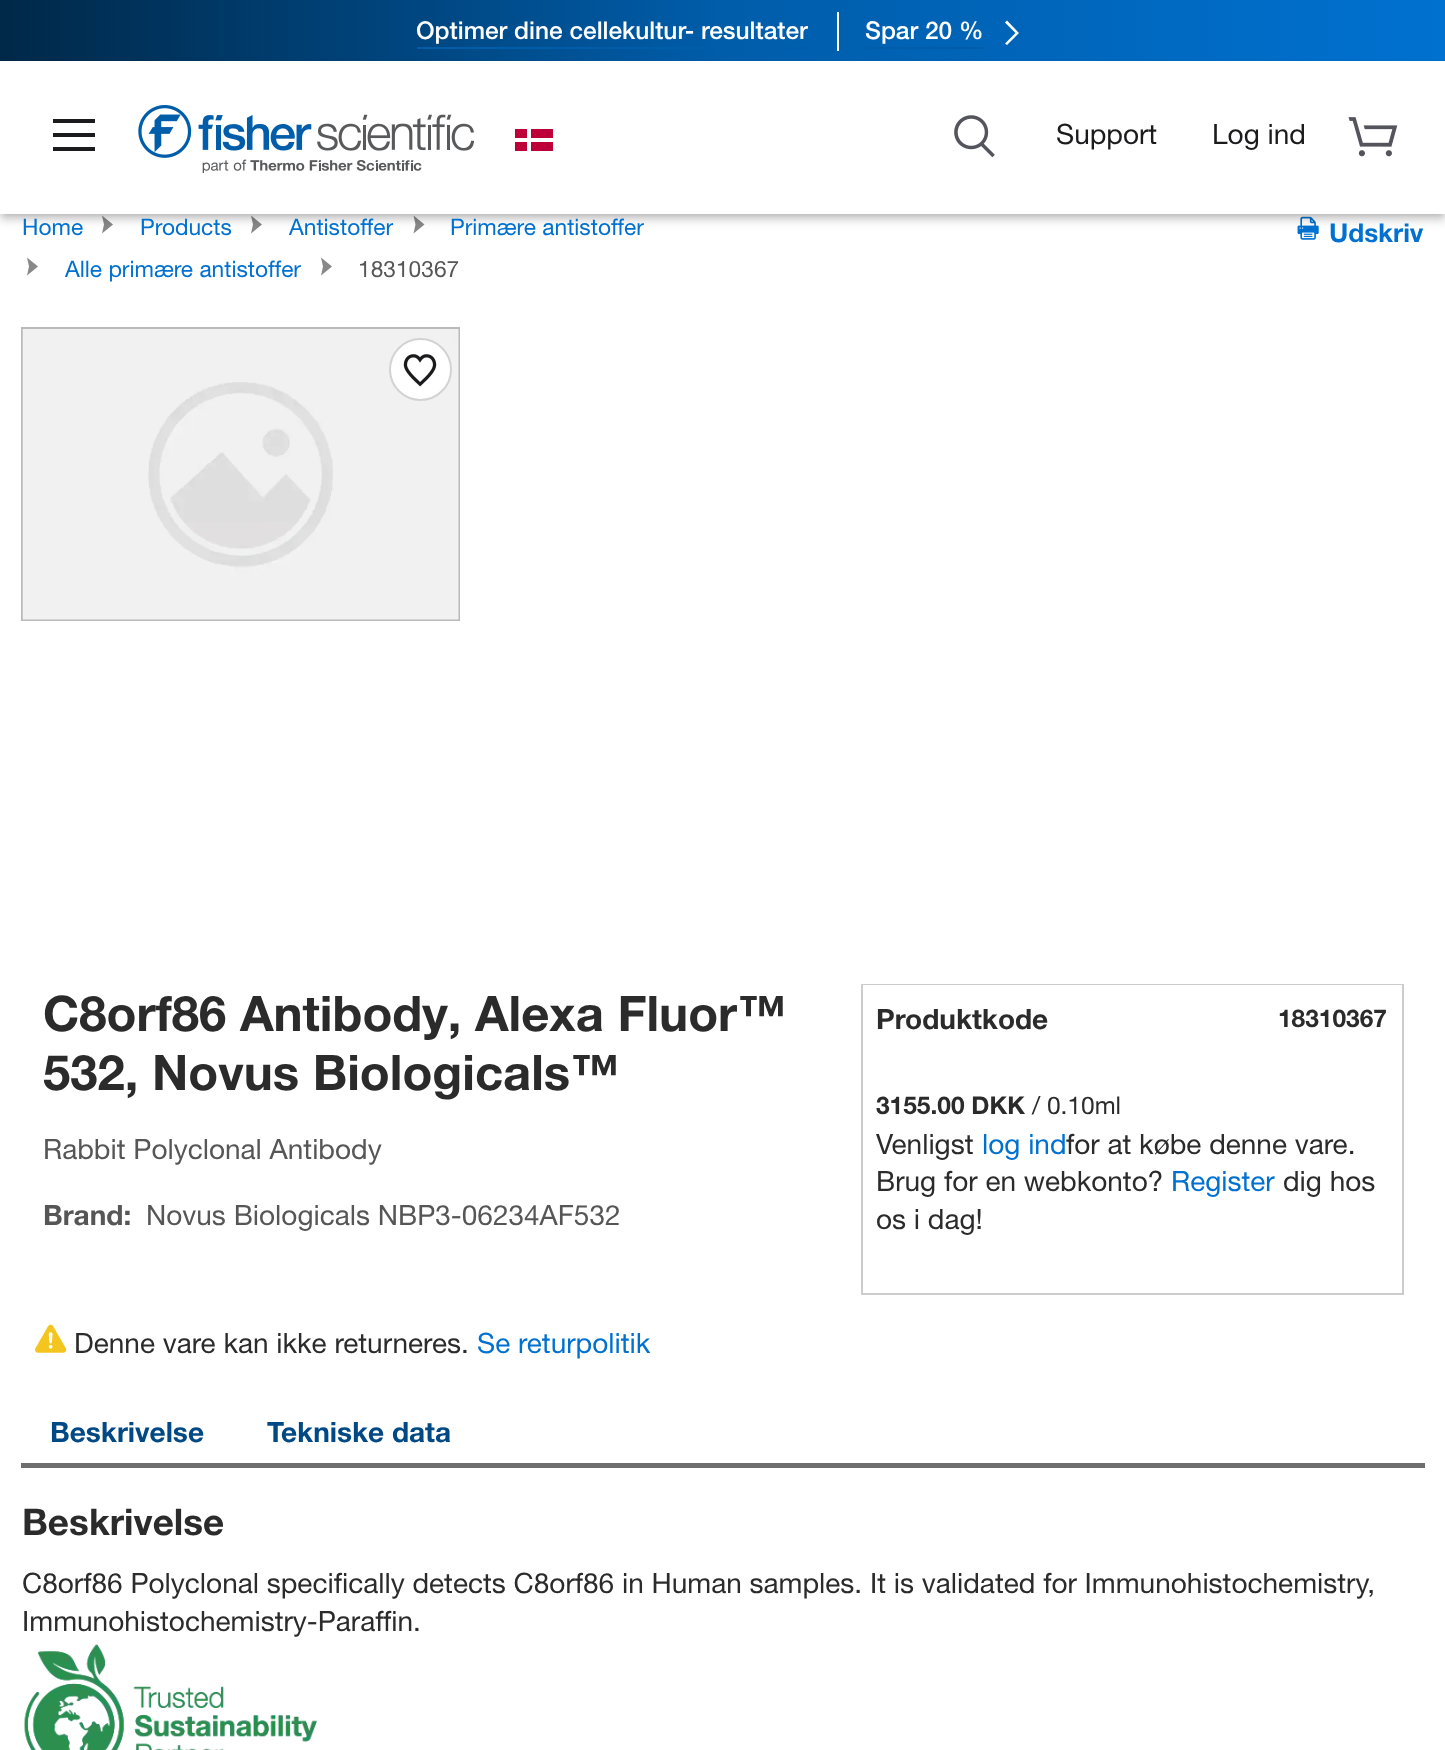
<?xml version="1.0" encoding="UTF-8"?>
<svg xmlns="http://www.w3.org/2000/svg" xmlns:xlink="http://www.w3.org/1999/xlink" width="1445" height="1750">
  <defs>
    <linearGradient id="g1" gradientUnits="userSpaceOnUse" x1="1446" y1="31" x2="0" y2="30"><stop offset="0" stop-color="#0071d0" /><stop offset="0.5" stop-color="#005daa" /><stop offset="1" stop-color="#002848" /></linearGradient>
  </defs>
  <rect width="100%" height="100%" fill="#ffffff" />
  <rect width="1445" height="61" fill="url(#g1)" />
  <rect x="417" y="47" width="392" height="2" fill="#005daa" />
  <rect x="837" y="12" width="2" height="39" fill="#ffffff" />
  <rect x="866" y="47" width="118" height="2" fill="#005daa" />
  <path d="M 1005 22.5 l 2 -2 l 12 12.5 l -12 12 l -2 -1.5 l 10.5 -10.5 z" fill="#ffffff" fill-rule="evenodd" />
  <path d="M 102 215.5 l 2 9 l -2 9 l 11 -9 z" fill="#888888" />
  <path d="M 251 215.5 l 2 9 l -2 9 l 11 -9 z" fill="#888888" />
  <path d="M 413.5 215.5 l 2 9 l -2 9 l 11 -9 z" fill="#888888" />
  <image x="1297" y="216" width="22" height="24" xlink:href="image4.png" />
  <rect y="68" width="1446" height="153" fill="#000000" fill-opacity="0.14" filter="blur(4.5px)" />
  <rect x="2" y="67" width="1442" height="148" fill="#000000" fill-opacity="0.2" filter="blur(3.5px)" />
  <rect y="61" width="1445" height="153" fill="#ffffff" />
  <rect x="53" y="133" width="42" height="4" fill="#1b1b1d" />
  <rect x="53" y="119" width="42" height="4" fill="#1b1b1d" />
  <rect x="53" y="147" width="42" height="4" fill="#1b1b1d" />
  <image x="138" y="105" width="336" height="68" xlink:href="image1.png" />
  <rect x="515" y="129" width="38" height="22" fill="#be003a" />
  <rect x="527" y="129" width="4" height="22" fill="#ffffff" />
  <rect x="515" y="138" width="38" height="4" fill="#ffffff" />
  <image x="954" y="115" width="41" height="43" xlink:href="image2.png" />
  <image x="1348" y="117" width="50" height="40" xlink:href="image3.png" />
  <path d="M 27 257.5 l 2 9 l -2 9 l 11 -9 z" fill="#888888" />
  <path d="M 321 257.5 l 2 9 l -2 9 l 11 -9 z" fill="#888888" />
  <rect x="22" y="328" width="437" height="292" fill="none" stroke="#bbb9b9" stroke-width="2" />
  <image x="22" y="329" width="437" height="291" xlink:href="image5.png" />
  <circle cx="420.5" cy="369.5" r="30.5" fill="#ffffff" stroke="#d3d3d3" stroke-width="2" />
  <image x="403" y="354" width="34" height="33" xlink:href="image6.png" />
  <rect x="862" y="985" width="541" height="309" fill="none" stroke="#cccccc" stroke-width="2" />
  <rect x="863" y="985" width="539" height="1" fill="#ffffff" />
  <image x="35" y="1324" width="32" height="29" xlink:href="image7.png" />
  <rect x="21" y="1463" width="1404" height="5" fill="#6e6e6e" />
  <image x="24" y="1644" width="293" height="106" xlink:href="image8.png" />
  <text x="416" y="39" style="font-family: Helvetica Neue; font-size: 24.5px; font-weight: 500; fill: #ffffff">Optimer dine cellekultur- resultater</text>
  <text x="865" y="39" style="font-family: Helvetica Neue; font-size: 24.5px; font-weight: 500; fill: #ffffff">Spar 20 %</text>
  <text x="1056" y="144" style="font-family: Helvetica Neue; font-size: 28px; fill: #1b1b1d">Support</text>
  <text x="1212" y="144" style="font-family: Helvetica Neue; font-size: 28px; fill: #1b1b1d">Log ind</text>
  <text x="22" y="235" style="font-family: Helvetica Neue; font-size: 22.75px; fill: #0071d0">Home</text>
  <text x="140" y="235" style="font-family: Helvetica Neue; font-size: 22.75px; fill: #0071d0">Products</text>
  <text x="289" y="235" style="font-family: Helvetica Neue; font-size: 22.75px; fill: #0071d0">Antistoffer</text>
  <text x="450" y="235" style="font-family: Helvetica Neue; font-size: 22.75px; fill: #0071d0">Primære antistoffer</text>
  <text x="65" y="277" style="font-family: Helvetica Neue; font-size: 22.75px; fill: #0071d0">Alle primære antistoffer</text>
  <text x="358" y="277" style="font-family: Helvetica Neue; font-size: 22.75px; fill: #565656">18310367</text>
  <text x="1329" y="242" style="font-family: Helvetica Neue; font-size: 26px; font-weight: bold; fill: #0071d0">Udskriv</text>
  <text x="43" y="1031" style="font-family: Helvetica Neue; font-size: 49px; font-weight: bold; fill: #2b2b2b">C8orf86 Antibody, Alexa Fluor™</text>
  <text x="43" y="1090" style="font-family: Helvetica Neue; font-size: 49px; font-weight: bold; fill: #2b2b2b">532, Novus Biologicals™</text>
  <text x="43" y="1159" style="font-family: Helvetica Neue; font-size: 28px; fill: #565656">Rabbit Polyclonal Antibody</text>
  <text x="43" y="1225" style="font-family: Helvetica Neue; font-size: 28px; font-weight: bold; fill: #565656">Brand:</text>
  <text x="146" y="1225" style="font-family: Helvetica Neue; font-size: 28px; fill: #565656">Novus Biologicals NBP3-06234AF532</text>
  <text x="876" y="1029" style="font-family: Helvetica Neue; font-size: 28px; font-weight: bold; fill: #2b2b2b">Produktkode</text>
  <text x="1278" y="1027" style="font-family: Helvetica Neue; font-size: 24.5px; font-weight: bold; fill: #2b2b2b">18310367</text>
  <text x="876" y="1114" style="font-family: Helvetica Neue; font-size: 24.5px; font-weight: bold; fill: #2b2b2b">3155.00 DKK</text>
  <text x="1032" y="1114" style="font-family: Helvetica Neue; font-size: 24.5px; fill: #2b2b2b">/ 0.10ml</text>
  <text x="876" y="1154" style="font-family: Helvetica Neue; font-size: 28px; fill: #2b2b2b">Venligst</text>
  <text x="982" y="1154" style="font-family: Helvetica Neue; font-size: 28px; fill: #0071d0">log ind</text>
  <text x="1066" y="1154" style="font-family: Helvetica Neue; font-size: 28px; fill: #2b2b2b">for at købe denne vare.</text>
  <text x="876" y="1191" style="font-family: Helvetica Neue; font-size: 28px; fill: #2b2b2b">Brug for en webkonto?</text>
  <text x="1171" y="1191" style="font-family: Helvetica Neue; font-size: 28px; fill: #0071d0">Register</text>
  <text x="1283" y="1191" style="font-family: Helvetica Neue; font-size: 28px; fill: #2b2b2b">dig hos</text>
  <text x="876" y="1229" style="font-family: Helvetica Neue; font-size: 28px; fill: #2b2b2b">os i dag!</text>
  <text x="74" y="1353" style="font-family: Helvetica Neue; font-size: 28px; fill: #2b2b2b">Denne vare kan ikke returneres.</text>
  <text x="477" y="1353" style="font-family: Helvetica Neue; font-size: 28px; fill: #0071d0">Se returpolitik</text>
  <text x="50" y="1442" style="font-family: Helvetica Neue; font-size: 28px; font-weight: bold; fill: #004985">Beskrivelse</text>
  <text x="267" y="1442" style="font-family: Helvetica Neue; font-size: 28px; font-weight: bold; fill: #004985">Tekniske data</text>
  <text x="22" y="1535" style="font-family: Helvetica Neue; font-size: 36.75px; font-weight: bold; fill: #2b2b2b">Beskrivelse</text>
  <text x="22" y="1593" style="font-family: Helvetica Neue; font-size: 28px; fill: #2b2b2b">C8orf86 Polyclonal specifically detects C8orf86 in Human samples. It is validated for Immunohistochemistry,</text>
  <text x="22" y="1631" style="font-family: Helvetica Neue; font-size: 28px; fill: #2b2b2b">Immunohistochemistry-Paraffin.</text>
</svg>
